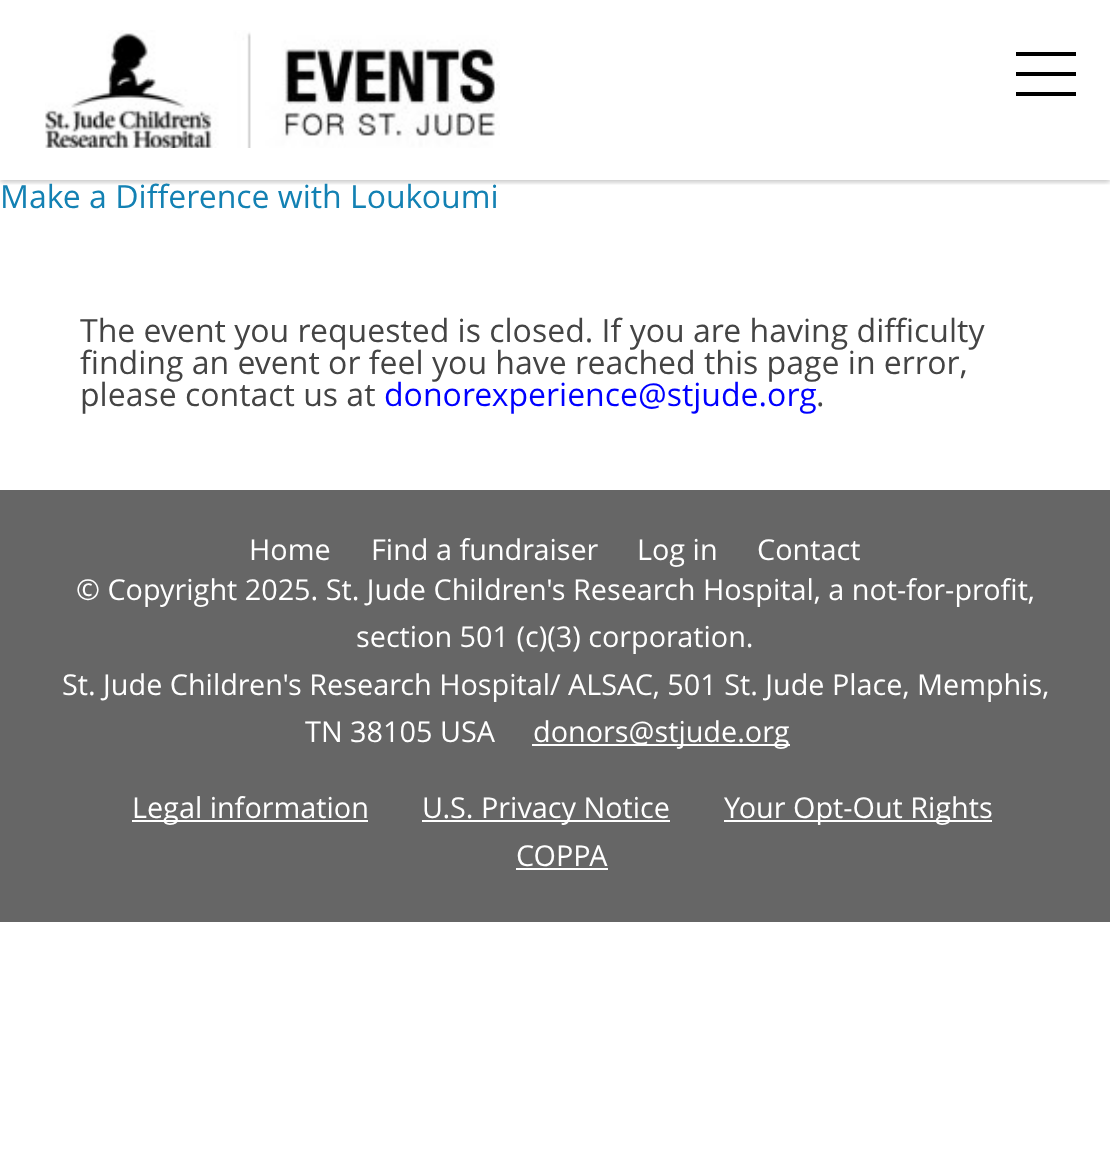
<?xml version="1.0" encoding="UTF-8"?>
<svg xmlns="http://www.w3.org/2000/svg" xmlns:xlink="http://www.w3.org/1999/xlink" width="1110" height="1153">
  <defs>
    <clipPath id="clip1"><rect x="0" y="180" width="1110" height="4" /></clipPath>
    <clipPath id="clip2"><rect x="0" y="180" width="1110" height="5" /></clipPath>
  </defs>
  <rect width="100%" height="100%" fill="#ffffff" />
  <g clip-path="url(#clip1)">
    <rect y="2" width="1110" height="180" fill="#000000" fill-opacity="0.12" filter="blur(2px)" />
  </g>
  <g clip-path="url(#clip2)">
    <rect y="2" width="1110" height="180" fill="#000000" fill-opacity="0.12" filter="blur(3px)" />
  </g>
  <image x="45" y="30" width="455" height="118" xlink:href="image1.png" />
  <rect x="1016" y="72" width="60" height="4" fill="#000000" />
  <rect x="1016" y="52" width="60" height="4" fill="#000000" />
  <rect x="1016" y="92" width="60" height="4" fill="#000000" />
  <rect y="490" width="1110" height="432" fill="#666666" />
  <rect x="532" y="744" width="258" height="2" fill="#ffffff" />
  <rect x="132" y="820" width="236" height="2" fill="#ffffff" />
  <rect x="422" y="820" width="248" height="2" fill="#ffffff" />
  <rect x="724" y="820" width="268" height="2" fill="#ffffff" />
  <rect x="516" y="868" width="92" height="2" fill="#ffffff" />
  <text x="0" y="208" style="font-family: Open Sans; font-size: 32px; fill: #1381b3">Make a Difference with Loukoumi</text>
  <text x="80" y="342" style="font-family: Open Sans; font-size: 32px; fill: #444444">The event you requested is closed. If you are having difficulty</text>
  <text x="80" y="374" style="font-family: Open Sans; font-size: 32px; fill: #444444">finding an event or feel you have reached this page in error,</text>
  <text x="80" y="406" style="font-family: Open Sans; font-size: 32px; fill: #444444">please contact us at</text>
  <text x="384" y="406" style="font-family: Open Sans; font-size: 32px; fill: #0000ff">donorexperience@stjude.org</text>
  <text x="816" y="406" style="font-family: Open Sans; font-size: 32px; fill: #444444">.</text>
  <text x="249" y="560" style="font-family: Open Sans; font-size: 28.8px; fill: #ffffff">Home</text>
  <text x="371" y="560" style="font-family: Open Sans; font-size: 28.8px; fill: #ffffff">Find a fundraiser</text>
  <text x="637" y="560" style="font-family: Open Sans; font-size: 28.8px; fill: #ffffff">Log in</text>
  <text x="757" y="560" style="font-family: Open Sans; font-size: 28.8px; fill: #ffffff">Contact</text>
  <text x="76" y="600" style="font-family: Open Sans; font-size: 28.8px; fill: #ffffff">© Copyright 2025. St. Jude Children's Research Hospital, a not-for-profit,</text>
  <text x="356" y="647" style="font-family: Open Sans; font-size: 28.8px; fill: #ffffff">section 501 (c)(3) corporation.</text>
  <text x="62" y="695" style="font-family: Open Sans; font-size: 28.8px; fill: #ffffff">St. Jude Children's Research Hospital/ ALSAC, 501 St. Jude Place, Memphis,</text>
  <text x="305" y="742" style="font-family: Open Sans; font-size: 28.8px; fill: #ffffff">TN 38105 USA</text>
  <text x="533" y="742" style="font-family: Open Sans; font-size: 28.8px; fill: #ffffff">donors@stjude.org</text>
  <text x="132" y="818" style="font-family: Open Sans; font-size: 28.8px; fill: #ffffff">Legal information</text>
  <text x="422" y="818" style="font-family: Open Sans; font-size: 28.8px; fill: #ffffff">U.S. Privacy Notice</text>
  <text x="724" y="818" style="font-family: Open Sans; font-size: 28.8px; fill: #ffffff">Your Opt-Out Rights</text>
  <text x="516" y="866" style="font-family: Open Sans; font-size: 28.8px; fill: #ffffff">COPPA</text>
</svg>
